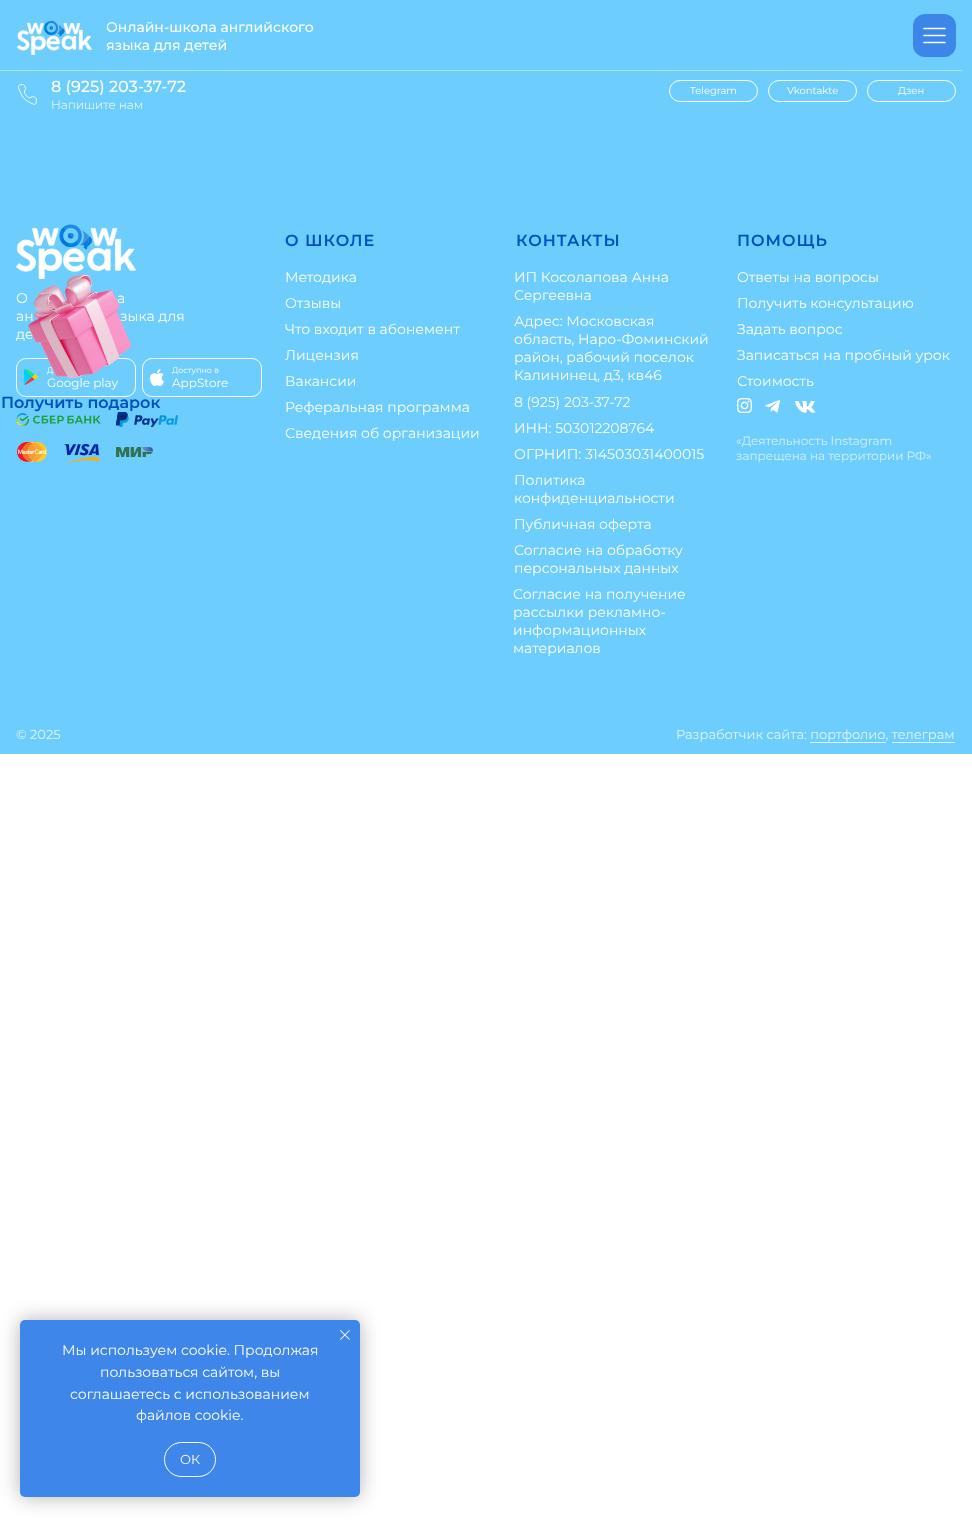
<?xml version="1.0" encoding="UTF-8"?>
<svg xmlns="http://www.w3.org/2000/svg" xmlns:xlink="http://www.w3.org/1999/xlink" width="972" height="1527">
  <rect width="100%" height="100%" fill="#ffffff" />
  <rect width="972" height="754" fill="#6dcdfd" />
  <image x="17" y="20" width="75" height="35" xlink:href="image1.png" />
  <rect x="913" y="14" width="43" height="43" rx="12" fill="#3d86e9" />
  <path d="M 924 35.5 h 21 m -21 -7 h 21 m -21 14 h 21" fill="none" stroke="#ffffff" stroke-width="1.7" stroke-linecap="round" stroke-linejoin="round" />
  <rect y="70" width="962" height="1" fill="#b1e1f9" />
  <image x="18" y="84" width="19" height="21" xlink:href="image2.png" />
  <rect x="669.5" y="80.5" width="88" height="21" rx="10.5" fill="none" stroke="#ffffff" />
  <rect x="768.5" y="80.5" width="88" height="21" rx="10.5" fill="none" stroke="#ffffff" />
  <rect x="867.5" y="80.5" width="88" height="21" rx="10.5" fill="none" stroke="#ffffff" />
  <image x="16" y="224" width="120" height="55" xlink:href="image3.png" />
  <rect x="16.5" y="358.5" width="119" height="38" rx="9.5" fill="none" stroke="#ffffff" />
  <rect x="142.5" y="358.5" width="119" height="38" rx="9.5" fill="none" stroke="#ffffff" />
  <image x="24" y="369" width="14" height="16" xlink:href="image4.png" />
  <image x="150" y="369" width="14" height="17" xlink:href="image5.png" />
  <image x="737" y="398" width="15" height="15" xlink:href="image6.png" />
  <image x="765" y="400" width="15" height="13" xlink:href="image7.png" />
  <image x="795" y="401" width="20" height="12" xlink:href="image8.png" />
  <image x="16" y="413" width="85" height="14" xlink:href="image9.png" />
  <image x="116" y="412" width="62" height="15" xlink:href="image10.png" />
  <image x="17" y="442" width="30" height="20" xlink:href="image11.png" />
  <image x="64" y="444" width="35" height="20" xlink:href="image12.png" />
  <image x="116" y="447" width="37" height="10" xlink:href="image13.png" />
  <rect x="810" y="742" width="76" height="1" fill="#e2f5ff" />
  <rect x="892" y="742" width="63" height="1" fill="#e2f5ff" />
  <rect x="20" y="1320" width="340" height="177" rx="5" fill="#000000" fill-opacity="0.3" filter="blur(10px)" />
  <rect x="20" y="1320" width="340" height="177" rx="5" fill="#3e86ea" />
  <image x="340" y="1330" width="10" height="10" xlink:href="image15.png" />
  <rect x="164.5" y="1442.5" width="51" height="34" rx="17" fill="none" stroke="#ffffff" />
  <text x="106" y="32" style="font-family: Montserrat; font-size: 14px; font-weight: 500; fill: #ffffff">Онлайн-школа английского</text>
  <text x="106" y="50" style="font-family: Montserrat; font-size: 14px; font-weight: 500; fill: #ffffff">языка для детей</text>
  <text x="51" y="92" style="font-family: Montserrat; font-size: 16px; font-weight: 500; fill: #ffffff">8 (925) 203-37-72</text>
  <text x="690" y="94" style="font-family: Montserrat; font-size: 10px; fill: #ffffff">Telegram</text>
  <text x="787" y="94" style="font-family: Montserrat; font-size: 10px; fill: #ffffff">Vkontakte</text>
  <text x="898" y="94" style="font-family: Montserrat; font-size: 10px; fill: #ffffff">Дзен</text>
  <text x="51" y="109" style="font-family: Montserrat; font-size: 12px; font-weight: 300; fill: #ffffff">Напишите нам</text>
  <text x="285" y="246" style="font-family: Montserrat; font-size: 16px; font-weight: 600; letter-spacing: 1px; fill: #0050bf">О ШКОЛЕ</text>
  <text x="516" y="246" style="font-family: Montserrat; font-size: 16px; font-weight: 600; letter-spacing: 1px; fill: #0050bf">КОНТАКТЫ</text>
  <text x="737" y="246" style="font-family: Montserrat; font-size: 16px; font-weight: 600; letter-spacing: 1px; fill: #0050bf">ПОМОЩЬ</text>
  <text x="285" y="282" style="font-family: Montserrat; font-size: 14px; fill: #ffffff">Методика</text>
  <text x="514" y="282" style="font-family: Montserrat; font-size: 14px; fill: #ffffff">ИП Косолапова Анна</text>
  <text x="514" y="300" style="font-family: Montserrat; font-size: 14px; fill: #ffffff">Сергеевна</text>
  <text x="737" y="282" style="font-family: Montserrat; font-size: 14px; fill: #ffffff">Ответы на вопросы</text>
  <text x="16" y="303" style="font-family: Montserrat; font-size: 14px; fill: #ffffff">О</text>
  <text x="117" y="303" style="font-family: Montserrat; font-size: 14px; fill: #ffffff">а</text>
  <text x="16" y="321" style="font-family: Montserrat; font-size: 14px; fill: #ffffff">ан</text>
  <text x="120" y="321" style="font-family: Montserrat; font-size: 14px; fill: #ffffff">зыка для</text>
  <text x="16" y="339" style="font-family: Montserrat; font-size: 14px; fill: #ffffff">де</text>
  <text x="285" y="308" style="font-family: Montserrat; font-size: 14px; fill: #ffffff">Отзывы</text>
  <text x="737" y="308" style="font-family: Montserrat; font-size: 14px; fill: #ffffff">Получить консультацию</text>
  <text x="285" y="334" style="font-family: Montserrat; font-size: 14px; fill: #ffffff">Что входит в абонемент</text>
  <text x="514" y="326" style="font-family: Montserrat; font-size: 14px; fill: #ffffff">Адрес: Московская</text>
  <text x="514" y="344" style="font-family: Montserrat; font-size: 14px; fill: #ffffff">область, Наро-Фоминский</text>
  <text x="514" y="362" style="font-family: Montserrat; font-size: 14px; fill: #ffffff">район, рабочий поселок</text>
  <text x="514" y="380" style="font-family: Montserrat; font-size: 14px; fill: #ffffff">Калининец, д3, кв46</text>
  <text x="737" y="334" style="font-family: Montserrat; font-size: 14px; fill: #ffffff">Задать вопрос</text>
  <text x="285" y="360" style="font-family: Montserrat; font-size: 14px; fill: #ffffff">Лицензия</text>
  <text x="737" y="360" style="font-family: Montserrat; font-size: 14px; fill: #ffffff">Записаться на пробный урок</text>
  <text x="47" y="373" style="font-family: Montserrat; font-size: 8px; fill: #ffffff">Д</text>
  <text x="172" y="373" style="font-family: Montserrat; font-size: 8px; fill: #ffffff">Доступно в</text>
  <text x="285" y="386" style="font-family: Montserrat; font-size: 14px; fill: #ffffff">Вакансии</text>
  <text x="737" y="386" style="font-family: Montserrat; font-size: 14px; fill: #ffffff">Стоимость</text>
  <text x="47" y="387" style="font-family: Montserrat; font-size: 12px; fill: #ffffff">Google play</text>
  <text x="172" y="387" style="font-family: Montserrat; font-size: 12px; fill: #ffffff">AppStore</text>
  <text x="285" y="412" style="font-family: Montserrat; font-size: 14px; fill: #ffffff">Реферальная программа</text>
  <text x="514" y="407" style="font-family: Montserrat; font-size: 14px; fill: #ffffff">8 (925) 203-37-72</text>
  <text x="285" y="438" style="font-family: Montserrat; font-size: 14px; fill: #ffffff">Сведения об организации</text>
  <text x="514" y="433" style="font-family: Montserrat; font-size: 14px; fill: #ffffff">ИНН: 503012208764</text>
  <text x="514" y="459" style="font-family: Montserrat; font-size: 14px; fill: #ffffff">ОГРНИП: 314503031400015</text>
  <text x="736" y="445" style="font-family: Montserrat; font-size: 12px; fill: #d3f0fe">«Деятельность Instagram</text>
  <text x="736" y="460" style="font-family: Montserrat; font-size: 12px; fill: #d3f0fe">запрещена на территории РФ»</text>
  <text x="514" y="485" style="font-family: Montserrat; font-size: 14px; fill: #ffffff">Политика</text>
  <text x="514" y="503" style="font-family: Montserrat; font-size: 14px; fill: #ffffff">конфиденциальности</text>
  <text x="514" y="529" style="font-family: Montserrat; font-size: 14px; fill: #ffffff">Публичная оферта</text>
  <text x="514" y="555" style="font-family: Montserrat; font-size: 14px; fill: #ffffff">Согласие на обработку</text>
  <text x="514" y="573" style="font-family: Montserrat; font-size: 14px; fill: #ffffff">персональных данных</text>
  <text x="513" y="599" style="font-family: Montserrat; font-size: 14px; fill: #ffffff">Согласие на получение</text>
  <text x="513" y="617" style="font-family: Montserrat; font-size: 14px; fill: #ffffff">рассылки рекламно-</text>
  <text x="513" y="635" style="font-family: Montserrat; font-size: 14px; fill: #ffffff">информационных</text>
  <text x="513" y="653" style="font-family: Montserrat; font-size: 14px; fill: #ffffff">материалов</text>
  <text x="16" y="739" style="font-family: Montserrat; font-size: 13px; fill: #e2f5ff">© 2025</text>
  <text x="676" y="739" style="font-family: Montserrat; font-size: 13px; fill: #e2f5ff">Разработчик сайта: портфолио, телеграм</text>
  <image x="28" y="274" width="104" height="105" xlink:href="image14.png" />
  <text x="1" y="408" style="font-family: Montserrat; font-size: 16px; font-weight: 600; fill: #0050bf">Получить подарок</text>
  <text x="62" y="1355" style="font-family: Montserrat; font-size: 14px; fill: #ffffff">Мы используем cookie. Продолжая</text>
  <text x="100" y="1377" style="font-family: Montserrat; font-size: 14px; fill: #ffffff">пользоваться сайтом, вы</text>
  <text x="70" y="1399" style="font-family: Montserrat; font-size: 14px; fill: #ffffff">соглашаетесь с использованием</text>
  <text x="136" y="1420" style="font-family: Montserrat; font-size: 14px; fill: #ffffff">файлов cookie.</text>
  <text x="180" y="1464" style="font-family: Montserrat; font-size: 13px; fill: #ffffff">ОК</text>
</svg>
